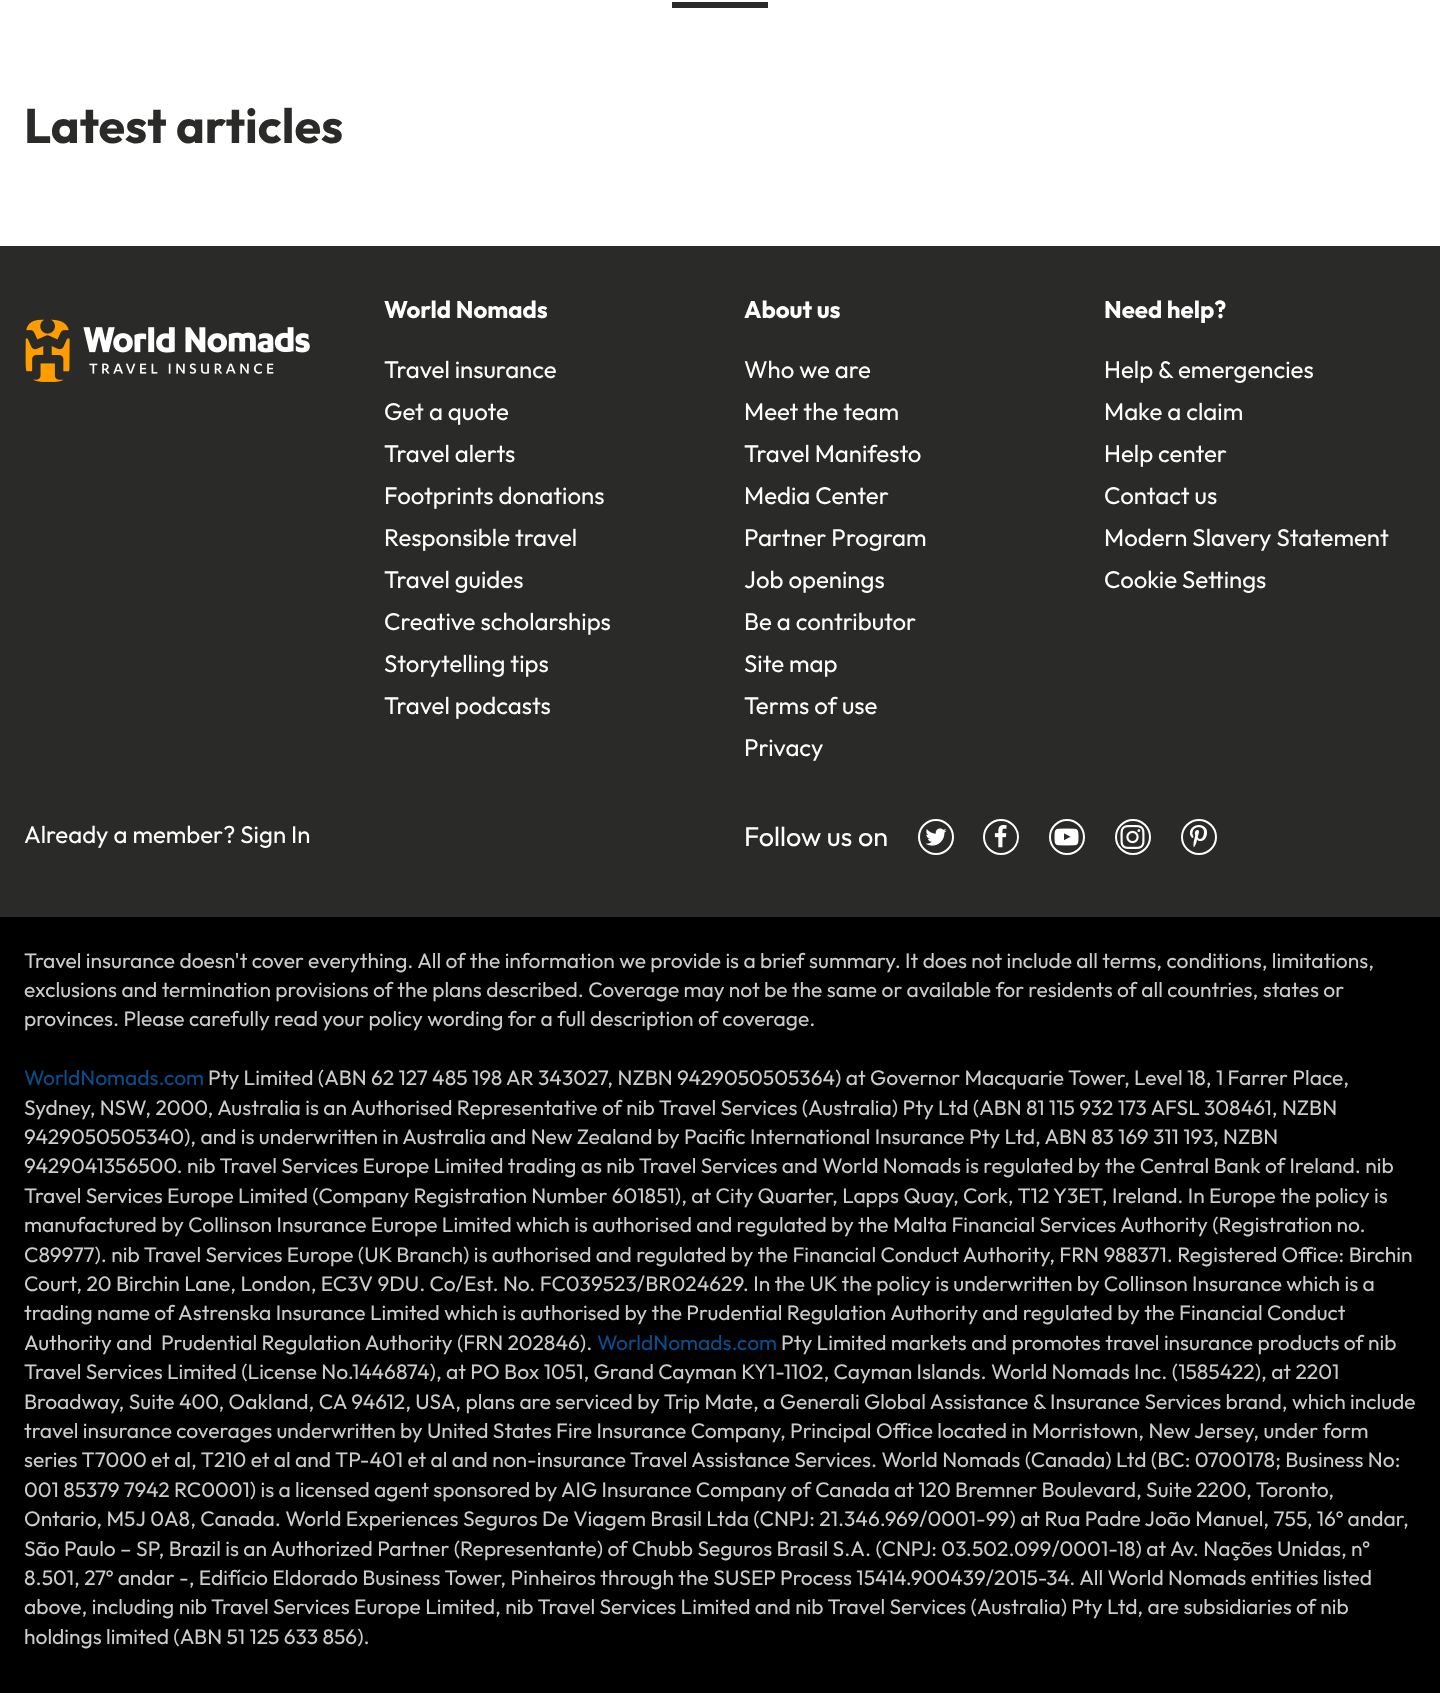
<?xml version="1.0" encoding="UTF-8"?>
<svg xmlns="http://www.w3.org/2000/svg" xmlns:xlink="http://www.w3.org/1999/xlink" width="1440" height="1693">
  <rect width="100%" height="100%" fill="#ffffff" />
  <rect x="672" y="2" width="96" height="6" fill="#2a2b29" />
  <rect y="917" width="1440" height="776" fill="#000000" />
  <rect y="246" width="1440" height="671" fill="#2a2b29" />
  <image x="25" y="319" width="285" height="63" xlink:href="image1.png" />
  <circle cx="936" cy="837" r="17" fill="none" stroke="#ffffff" stroke-width="2" />
  <image x="925" y="828" width="22" height="18" xlink:href="image2.png" />
  <circle cx="1001" cy="837" r="17" fill="none" stroke="#ffffff" stroke-width="2" />
  <image x="994" y="825" width="13" height="23" xlink:href="image3.png" />
  <circle cx="1067" cy="837" r="17" fill="none" stroke="#ffffff" stroke-width="2" />
  <image x="1054" y="828" width="25" height="18" xlink:href="image4.png" />
  <circle cx="1133" cy="837" r="17" fill="none" stroke="#ffffff" stroke-width="2" />
  <image x="1120" y="825" width="25" height="24" xlink:href="image5.png" />
  <circle cx="1199" cy="837" r="17" fill="none" stroke="#ffffff" stroke-width="2" />
  <image x="1189" y="825" width="19" height="23" xlink:href="image6.png" />
  <text x="24" y="143" style="font-family: Outfit; font-size: 48.5px; font-weight: bold; fill: #2a2b29">Latest articles</text>
  <text x="384" y="318" style="font-family: Outfit; font-size: 24px; font-weight: bold; fill: #ffffff">World Nomads</text>
  <text x="384" y="378" style="font-family: Outfit; font-size: 24px; fill: #ffffff">Travel insurance</text>
  <text x="384" y="420" style="font-family: Outfit; font-size: 24px; fill: #ffffff">Get a quote</text>
  <text x="384" y="462" style="font-family: Outfit; font-size: 24px; fill: #ffffff">Travel alerts</text>
  <text x="384" y="504" style="font-family: Outfit; font-size: 24px; fill: #ffffff">Footprints donations</text>
  <text x="384" y="546" style="font-family: Outfit; font-size: 24px; fill: #ffffff">Responsible travel</text>
  <text x="384" y="588" style="font-family: Outfit; font-size: 24px; fill: #ffffff">Travel guides</text>
  <text x="384" y="630" style="font-family: Outfit; font-size: 24px; fill: #ffffff">Creative scholarships</text>
  <text x="384" y="672" style="font-family: Outfit; font-size: 24px; fill: #ffffff">Storytelling tips</text>
  <text x="384" y="714" style="font-family: Outfit; font-size: 24px; fill: #ffffff">Travel podcasts</text>
  <text x="744" y="318" style="font-family: Outfit; font-size: 24px; font-weight: bold; fill: #ffffff">About us</text>
  <text x="744" y="378" style="font-family: Outfit; font-size: 24px; fill: #ffffff">Who we are</text>
  <text x="744" y="420" style="font-family: Outfit; font-size: 24px; fill: #ffffff">Meet the team</text>
  <text x="744" y="462" style="font-family: Outfit; font-size: 24px; fill: #ffffff">Travel Manifesto</text>
  <text x="744" y="504" style="font-family: Outfit; font-size: 24px; fill: #ffffff">Media Center</text>
  <text x="744" y="546" style="font-family: Outfit; font-size: 24px; fill: #ffffff">Partner Program</text>
  <text x="744" y="588" style="font-family: Outfit; font-size: 24px; fill: #ffffff">Job openings</text>
  <text x="744" y="630" style="font-family: Outfit; font-size: 24px; fill: #ffffff">Be a contributor</text>
  <text x="744" y="672" style="font-family: Outfit; font-size: 24px; fill: #ffffff">Site map</text>
  <text x="744" y="714" style="font-family: Outfit; font-size: 24px; fill: #ffffff">Terms of use</text>
  <text x="744" y="756" style="font-family: Outfit; font-size: 24px; fill: #ffffff">Privacy</text>
  <text x="1104" y="318" style="font-family: Outfit; font-size: 24px; font-weight: bold; fill: #ffffff">Need help?</text>
  <text x="1104" y="378" style="font-family: Outfit; font-size: 24px; fill: #ffffff">Help &amp; emergencies</text>
  <text x="1104" y="420" style="font-family: Outfit; font-size: 24px; fill: #ffffff">Make a claim</text>
  <text x="1104" y="462" style="font-family: Outfit; font-size: 24px; fill: #ffffff">Help center</text>
  <text x="1104" y="504" style="font-family: Outfit; font-size: 24px; fill: #ffffff">Contact us</text>
  <text x="1104" y="546" style="font-family: Outfit; font-size: 24px; fill: #ffffff">Modern Slavery Statement</text>
  <text x="1104" y="588" style="font-family: Outfit; font-size: 24px; fill: #ffffff">Cookie Settings</text>
  <text x="24" y="843" style="font-family: Outfit; font-size: 24px; fill: #ffffff">Already a member? Sign In</text>
  <text x="744" y="846" style="font-family: Outfit; font-size: 27px; fill: #ffffff">Follow us on</text>
  <text x="24" y="968" style="font-family: Outfit; font-size: 21px; fill: #cccccc">Travel insurance doesn't cover everything. All of the information we provide is a brief summary. It does not include all terms, conditions, limitations,</text>
  <text x="24" y="997" style="font-family: Outfit; font-size: 21px; fill: #cccccc">exclusions and termination provisions of the plans described. Coverage may not be the same or available for residents of all countries, states or</text>
  <text x="24" y="1026" style="font-family: Outfit; font-size: 21px; fill: #cccccc">provinces. Please carefully read your policy wording for a full description of coverage.</text>
  <text x="24" y="1085" style="font-family: Outfit; font-size: 21px; fill: #094f90">WorldNomads.com</text>
  <text x="208" y="1085" style="font-family: Outfit; font-size: 21px; fill: #cccccc">Pty Limited (ABN 62 127 485 198 AR 343027, NZBN 9429050505364) at Governor Macquarie Tower, Level 18, 1 Farrer Place,</text>
  <text x="24" y="1115" style="font-family: Outfit; font-size: 21px; fill: #cccccc">Sydney, NSW, 2000, Australia is an Authorised Representative of nib Travel Services (Australia) Pty Ltd (ABN 81 115 932 173 AFSL 308461, NZBN</text>
  <text x="24" y="1144" style="font-family: Outfit; font-size: 21px; fill: #cccccc">9429050505340), and is underwritten in Australia and New Zealand by Pacific International Insurance Pty Ltd, ABN 83 169 311 193, NZBN</text>
  <text x="24" y="1173" style="font-family: Outfit; font-size: 21px; fill: #cccccc">9429041356500. nib Travel Services Europe Limited trading as nib Travel Services and World Nomads is regulated by the Central Bank of Ireland. nib</text>
  <text x="24" y="1203" style="font-family: Outfit; font-size: 21px; fill: #cccccc">Travel Services Europe Limited (Company Registration Number 601851), at City Quarter, Lapps Quay, Cork, T12 Y3ET, Ireland. In Europe the policy is</text>
  <text x="24" y="1232" style="font-family: Outfit; font-size: 21px; fill: #cccccc">manufactured by Collinson Insurance Europe Limited which is authorised and regulated by the Malta Financial Services Authority (Registration no.</text>
  <text x="24" y="1262" style="font-family: Outfit; font-size: 21px; fill: #cccccc">C89977). nib Travel Services Europe (UK Branch) is authorised and regulated by the Financial Conduct Authority, FRN 988371. Registered Office: Birchin</text>
  <text x="24" y="1291" style="font-family: Outfit; font-size: 21px; fill: #cccccc">Court, 20 Birchin Lane, London, EC3V 9DU. Co/Est. No. FC039523/BR024629. In the UK the policy is underwritten by Collinson Insurance which is a</text>
  <text x="24" y="1320" style="font-family: Outfit; font-size: 21px; fill: #cccccc">trading name of Astrenska Insurance Limited which is authorised by the Prudential Regulation Authority and regulated by the Financial Conduct</text>
  <text x="24" y="1350" style="font-family: Outfit; font-size: 21px; fill: #cccccc" xml:space="preserve">Authority and  Prudential Regulation Authority (FRN 202846).</text>
  <text x="597" y="1350" style="font-family: Outfit; font-size: 21px; fill: #094f90">WorldNomads.com</text>
  <text x="781" y="1350" style="font-family: Outfit; font-size: 21px; fill: #cccccc">Pty Limited markets and promotes travel insurance products of nib</text>
  <text x="24" y="1379" style="font-family: Outfit; font-size: 21px; fill: #cccccc">Travel Services Limited (License No.1446874), at PO Box 1051, Grand Cayman KY1-1102, Cayman Islands. World Nomads Inc. (1585422), at 2201</text>
  <text x="24" y="1409" style="font-family: Outfit; font-size: 21px; fill: #cccccc">Broadway, Suite 400, Oakland, CA 94612, USA, plans are serviced by Trip Mate, a Generali Global Assistance &amp; Insurance Services brand, which include</text>
  <text x="24" y="1438" style="font-family: Outfit; font-size: 21px; fill: #cccccc">travel insurance coverages underwritten by United States Fire Insurance Company, Principal Office located in Morristown, New Jersey, under form</text>
  <text x="24" y="1467" style="font-family: Outfit; font-size: 21px; fill: #cccccc">series T7000 et al, T210 et al and TP-401 et al and non-insurance Travel Assistance Services. World Nomads (Canada) Ltd (BC: 0700178; Business No:</text>
  <text x="24" y="1497" style="font-family: Outfit; font-size: 21px; fill: #cccccc">001 85379 7942 RC0001) is a licensed agent sponsored by AIG Insurance Company of Canada at 120 Bremner Boulevard, Suite 2200, Toronto,</text>
  <text x="24" y="1526" style="font-family: Outfit; font-size: 21px; fill: #cccccc">Ontario, M5J 0A8, Canada. World Experiences Seguros De Viagem Brasil Ltda (CNPJ: 21.346.969/0001-99) at Rua Padre João Manuel, 755, 16º andar,</text>
  <text x="24" y="1556" style="font-family: Outfit; font-size: 21px; fill: #cccccc">São Paulo – SP, Brazil is an Authorized Partner (Representante) of Chubb Seguros Brasil S.A. (CNPJ: 03.502.099/0001-18) at Av. Nações Unidas, nº</text>
  <text x="24" y="1585" style="font-family: Outfit; font-size: 21px; fill: #cccccc">8.501, 27º andar -, Edifício Eldorado Business Tower, Pinheiros through the SUSEP Process 15414.900439/2015-34. All World Nomads entities listed</text>
  <text x="24" y="1614" style="font-family: Outfit; font-size: 21px; fill: #cccccc">above, including nib Travel Services Europe Limited, nib Travel Services Limited and nib Travel Services (Australia) Pty Ltd, are subsidiaries of nib</text>
  <text x="24" y="1644" style="font-family: Outfit; font-size: 21px; fill: #cccccc">holdings limited (ABN 51 125 633 856).</text>
</svg>
